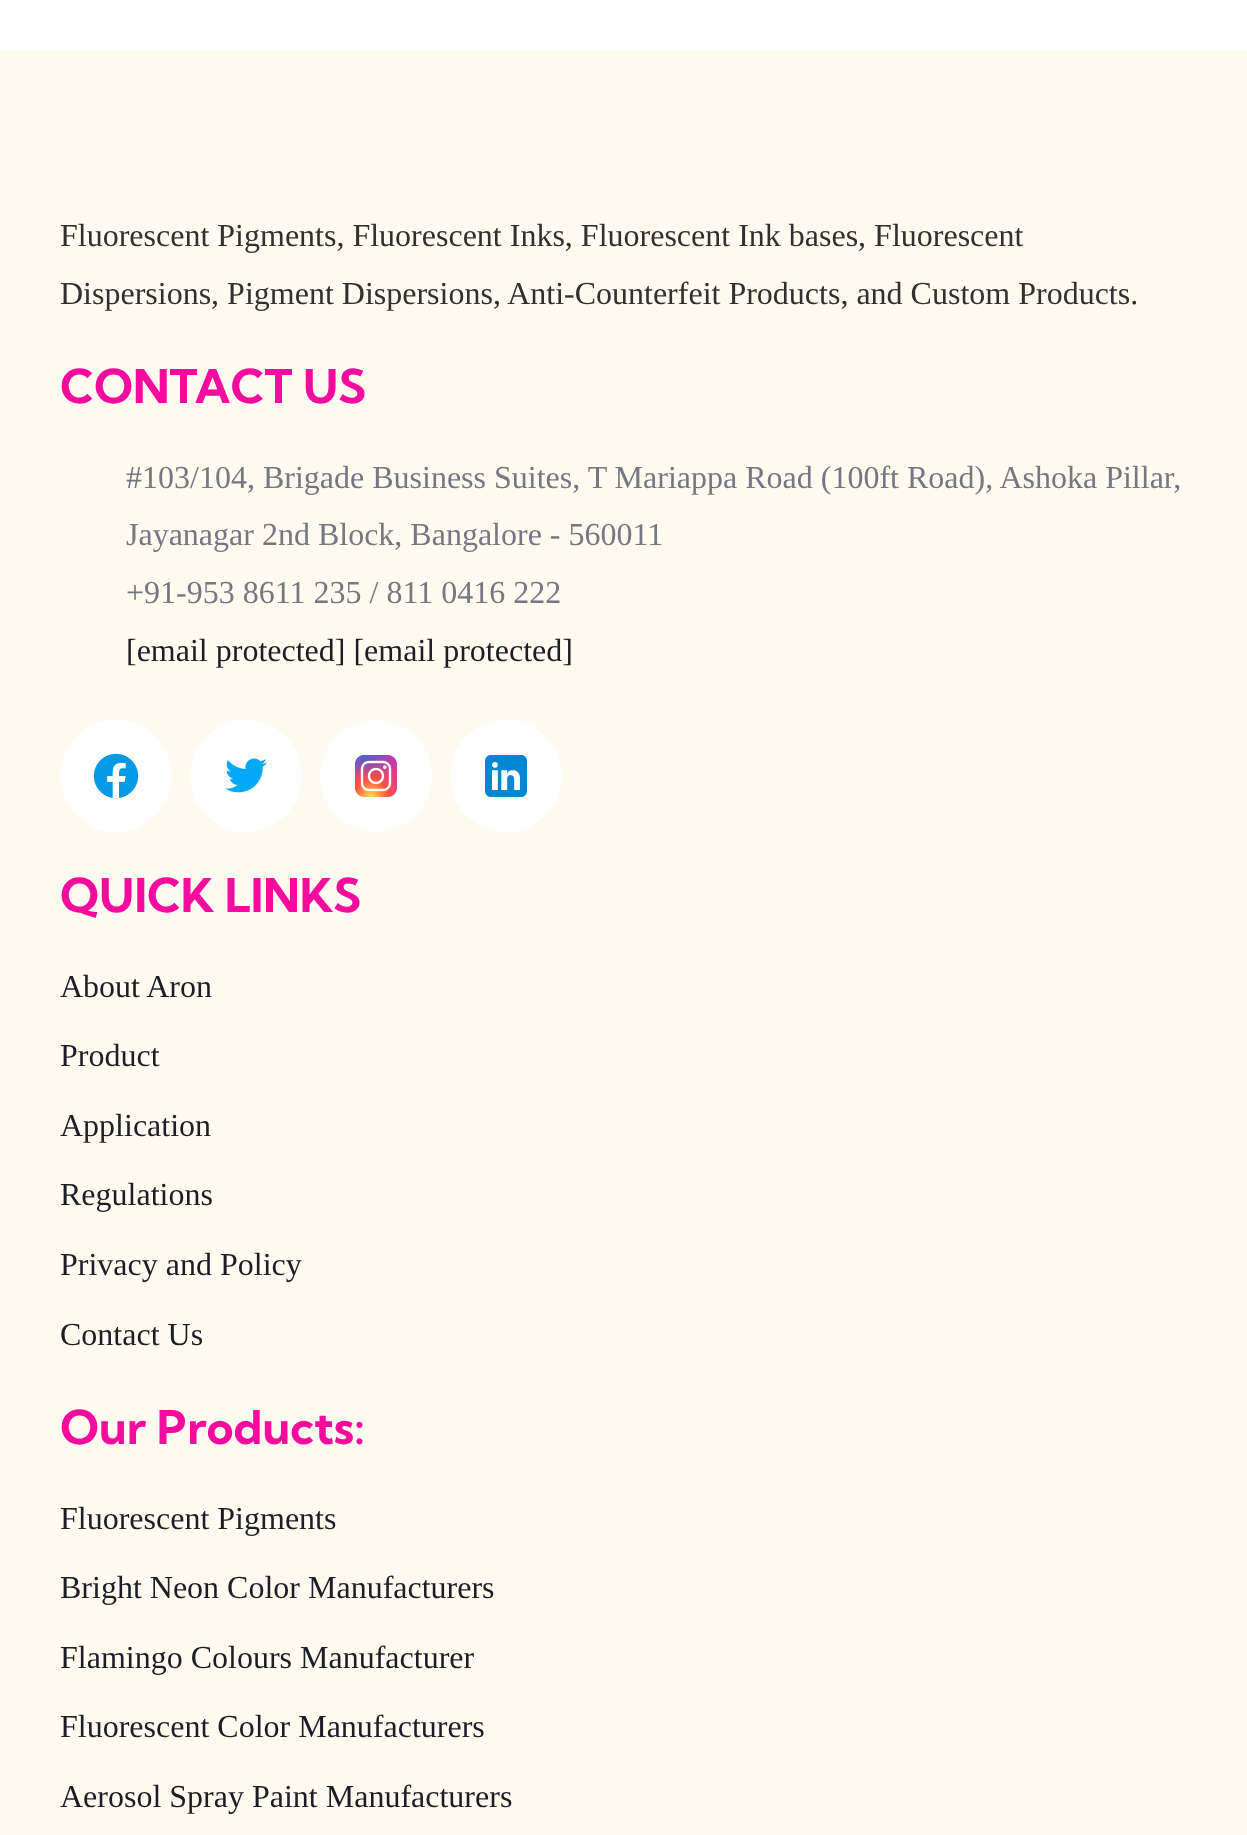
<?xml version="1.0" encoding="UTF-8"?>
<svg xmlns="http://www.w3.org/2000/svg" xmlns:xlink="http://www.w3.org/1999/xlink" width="1247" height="1835">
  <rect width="100%" height="100%" fill="#ffffff" />
  <rect y="50" width="1247" height="1785" fill="#fffbf1" />
  <circle cx="116" cy="776" r="56" fill="#ffffff" />
  <image x="93" y="753" width="46" height="46" xlink:href="image1.png" />
  <circle cx="246" cy="776" r="56" fill="#ffffff" />
  <image x="225" y="758" width="42" height="35" xlink:href="image2.png" />
  <circle cx="376" cy="776" r="56" fill="#ffffff" />
  <image x="355" y="755" width="42" height="42" xlink:href="image3.png" />
  <circle cx="506" cy="776" r="56" fill="#ffffff" />
  <image x="485" y="755" width="42" height="42" xlink:href="image4.png" />
  <text x="60" y="246" style="font-family: Liberation Serif; font-size: 32px; fill: #303030">Fluorescent Pigments, Fluorescent Inks, Fluorescent Ink bases, Fluorescent</text>
  <text x="60" y="304" style="font-family: Liberation Serif; font-size: 32px; fill: #303030">Dispersions, Pigment Dispersions, Anti-Counterfeit Products, and Custom Products.</text>
  <text x="60" y="403" style="font-family: Kumbh Sans; font-size: 46.5px; font-weight: bold; fill: #f60b9f">CONTACT US</text>
  <text x="126" y="488" style="font-family: Liberation Serif; font-size: 32px; fill: #757783">#103/104, Brigade Business Suites, T Mariappa Road (100ft Road), Ashoka Pillar,</text>
  <text x="126" y="545" style="font-family: Liberation Serif; font-size: 32px; fill: #757783">Jayanagar 2nd Block, Bangalore - 560011</text>
  <text x="126" y="603" style="font-family: Liberation Serif; font-size: 32px; fill: #757783">+91-953 8611 235 / 811 0416 222</text>
  <text x="126" y="661" style="font-family: Liberation Serif; font-size: 32px; fill: #1c1e27">[email protected] [email protected]</text>
  <text x="60" y="912" style="font-family: Kumbh Sans; font-size: 46.5px; font-weight: bold; fill: #f60b9f">QUICK LINKS</text>
  <text x="60" y="997" style="font-family: Liberation Serif; font-size: 32px; fill: #1c1e27">About Aron</text>
  <text x="60" y="1066" style="font-family: Liberation Serif; font-size: 32px; fill: #1c1e27">Product</text>
  <text x="60" y="1136" style="font-family: Liberation Serif; font-size: 32px; fill: #1c1e27">Application</text>
  <text x="60" y="1205" style="font-family: Liberation Serif; font-size: 32px; fill: #1c1e27">Regulations</text>
  <text x="60" y="1275" style="font-family: Liberation Serif; font-size: 32px; fill: #1c1e27">Privacy and Policy</text>
  <text x="60" y="1345" style="font-family: Liberation Serif; font-size: 32px; fill: #1c1e27">Contact Us</text>
  <text x="60" y="1444" style="font-family: Kumbh Sans; font-size: 46.5px; font-weight: bold; fill: #f60b9f">Our Products:</text>
  <text x="60" y="1529" style="font-family: Liberation Serif; font-size: 32px; fill: #1c1e27">Fluorescent Pigments</text>
  <text x="60" y="1598" style="font-family: Liberation Serif; font-size: 32px; fill: #1c1e27">Bright Neon Color Manufacturers</text>
  <text x="60" y="1668" style="font-family: Liberation Serif; font-size: 32px; fill: #1c1e27">Flamingo Colours Manufacturer</text>
  <text x="60" y="1737" style="font-family: Liberation Serif; font-size: 32px; fill: #1c1e27">Fluorescent Color Manufacturers</text>
  <text x="60" y="1807" style="font-family: Liberation Serif; font-size: 32px; fill: #1c1e27">Aerosol Spray Paint Manufacturers</text>
</svg>
